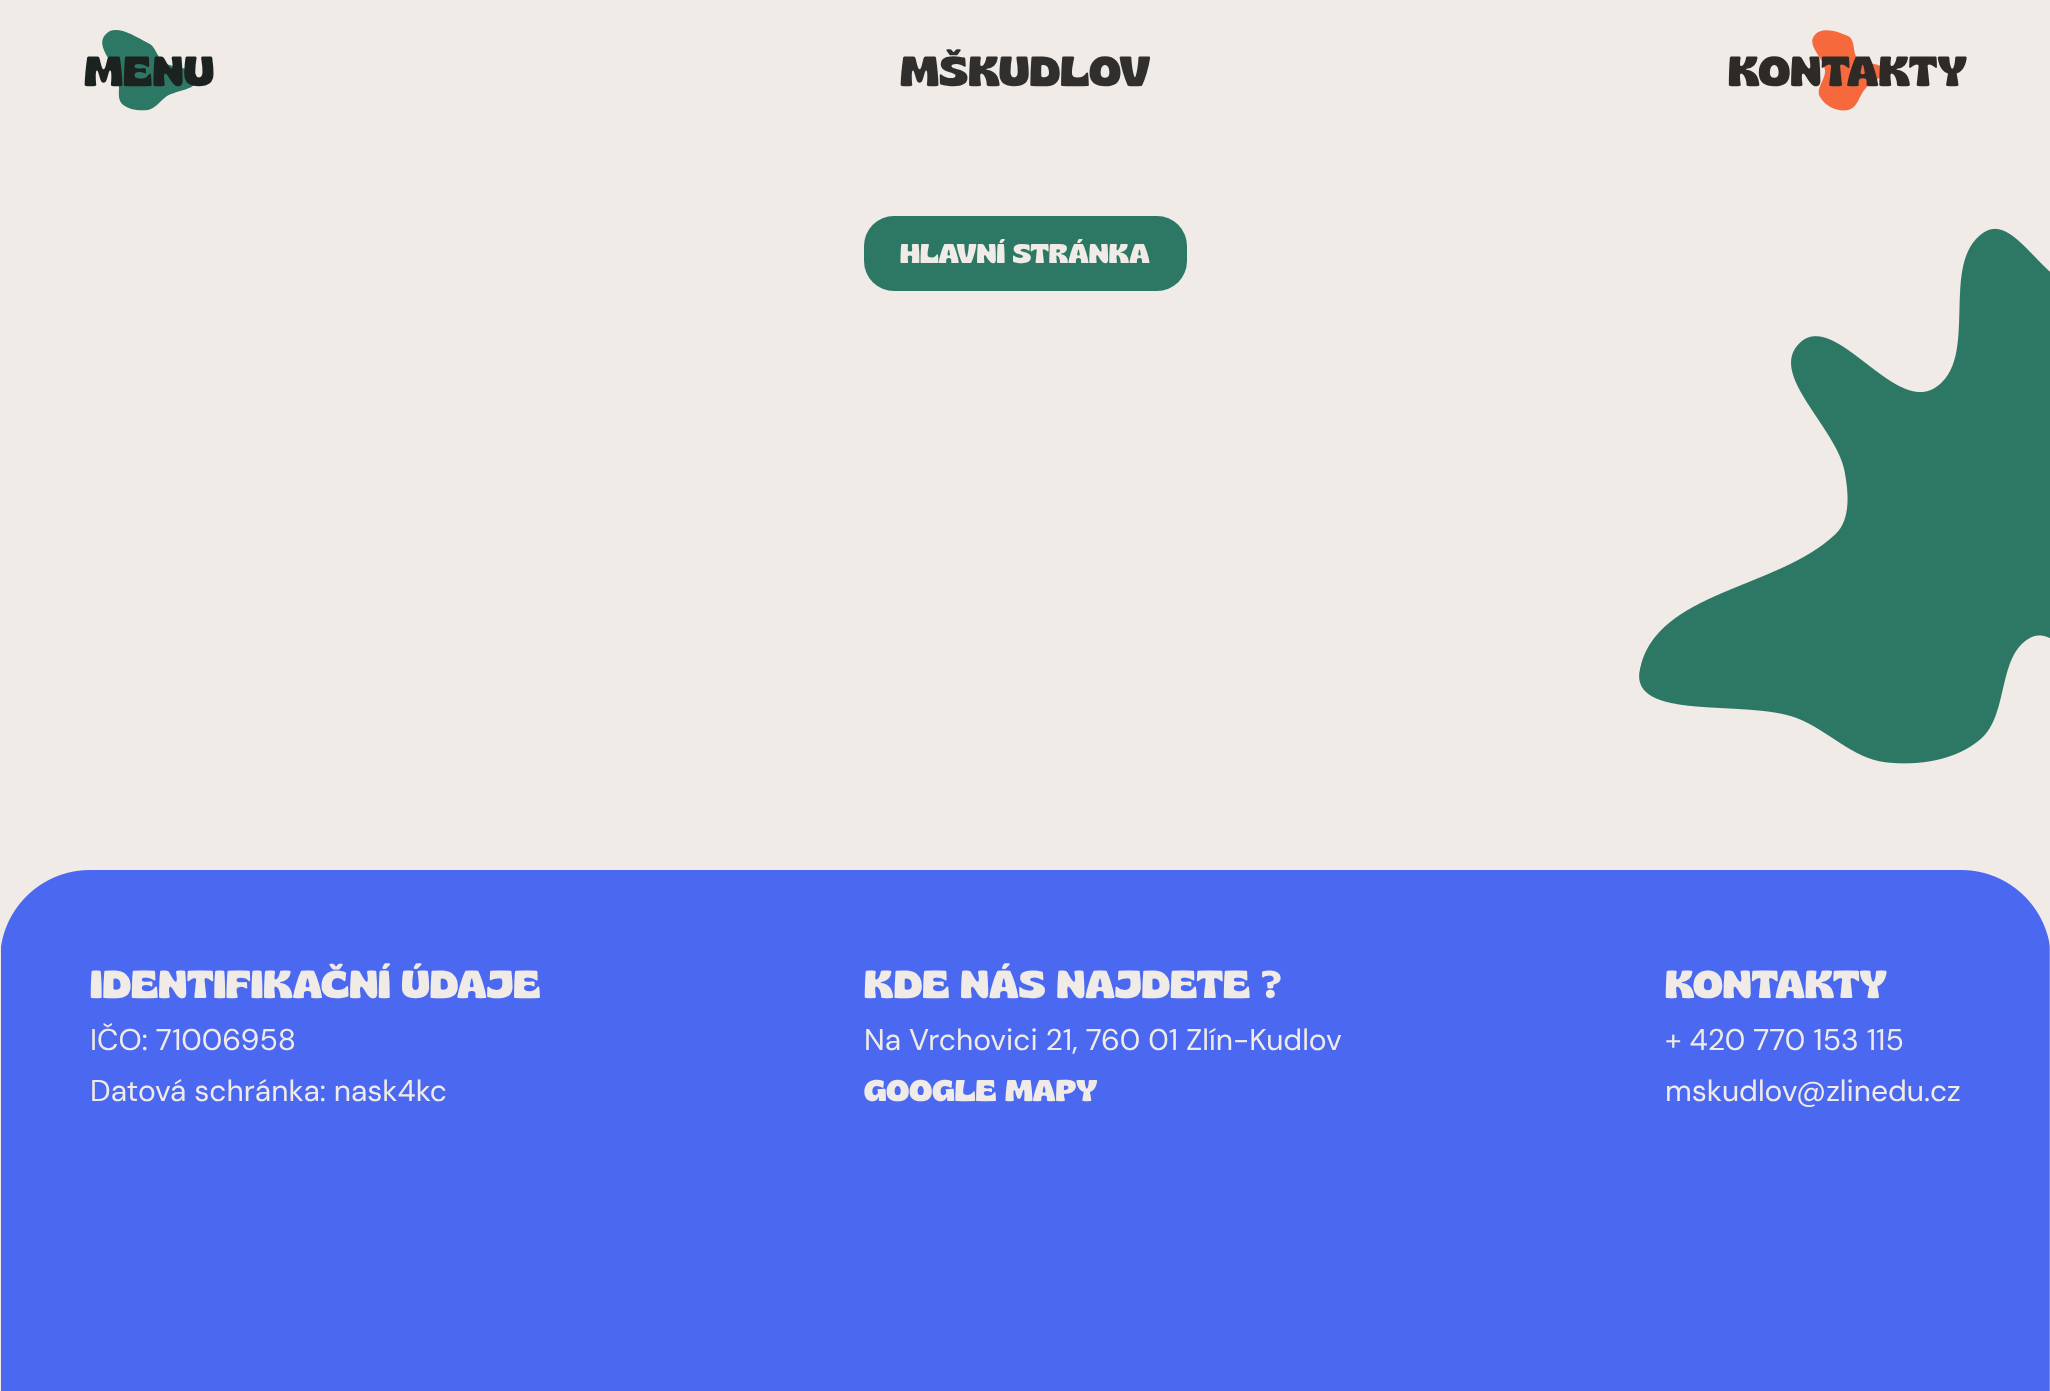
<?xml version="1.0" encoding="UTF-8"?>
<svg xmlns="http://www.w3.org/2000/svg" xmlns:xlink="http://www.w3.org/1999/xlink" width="2050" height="1391">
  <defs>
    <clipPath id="clip1"><rect x="1812" y="30" width="71" height="81" /></clipPath>
  </defs>
  <rect width="100%" height="100%" fill="#f0ebe6" />
  <path d="M 148 43 c 8 3 8 14 16 19 c 10 8 31 3 33 16 c 1 12 -20 12 -30 18 c -7 5 -11 12 -19 14 c -9 1 -19 0 -26 -6 c -6 -7 -1 -17 -4 -26 c -3 -15 -23 -31 -13 -43 c 10 -12 29 1 43 8 z" fill="#2d7864" fill-rule="evenodd" />
  <g clip-path="url(#clip1)">
    <path d="M 1848 36 c 8 4 4 17 10 23 c 7 7 23 2 25 11 c 2 8 -12 11 -17 18 c -7 7 -8 20 -18 22 c -10 2 -22 -3 -28 -13 c -5 -8 6 -18 5 -27 c -2 -13 -18 -24 -11 -34 c 7 -10 23 -5 34 0 z" fill="#f5693c" fill-rule="evenodd" />
  </g>
  <rect x="864" y="216" width="323" height="75" rx="30" fill="#2d7864" />
  <image x="1639" y="228" width="411" height="536" xlink:href="image1.png" />
  <image x="1" y="870" width="2049" height="521" xlink:href="image2.png" />
  <text x="84" y="86" style="font-family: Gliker; font-size: 42px; font-weight: bold; fill: #1b2220">MENU</text>
  <text x="900" y="86" style="font-family: Gliker; font-size: 42px; font-weight: bold; fill: #302f2e">MŠKUDLOV</text>
  <text x="1728" y="86" style="font-family: Gliker; font-size: 42px; font-weight: bold; fill: #302a27">KONTAKTY</text>
  <text x="900" y="263" style="font-family: Gliker; font-size: 27px; font-weight: bold; fill: #f0ebe6">HLAVNÍ STRÁNKA</text>
  <text x="90" y="998" style="font-family: Gliker; font-size: 39px; font-weight: bold; fill: #f0ebe6">IDENTIFIKAČNÍ ÚDAJE</text>
  <text x="90" y="1050" style="font-family: DM Sans; font-size: 30px; fill: #f0ebe6">IČO: 71006958</text>
  <text x="90" y="1101" style="font-family: DM Sans; font-size: 30px; fill: #f0ebe6">Datová schránka: nask4kc</text>
  <text x="864" y="998" style="font-family: Gliker; font-size: 39px; font-weight: bold; fill: #f0ebe6">KDE NÁS NAJDETE ?</text>
  <text x="864" y="1050" style="font-family: DM Sans; font-size: 30px; fill: #f0ebe6">Na Vrchovici 21, 760 01 Zlín-Kudlov</text>
  <text x="864" y="1101" style="font-family: Gliker; font-size: 30px; font-weight: bold; fill: #f0ebe6">GOOGLE MAPY</text>
  <text x="1665" y="998" style="font-family: Gliker; font-size: 39px; font-weight: bold; fill: #f0ebe6">KONTAKTY</text>
  <text x="1665" y="1050" style="font-family: DM Sans; font-size: 30px; fill: #f0ebe6">+ 420 770 153 115</text>
  <text x="1665" y="1101" style="font-family: DM Sans; font-size: 30px; fill: #f0ebe6">mskudlov@zlinedu.cz</text>
</svg>
